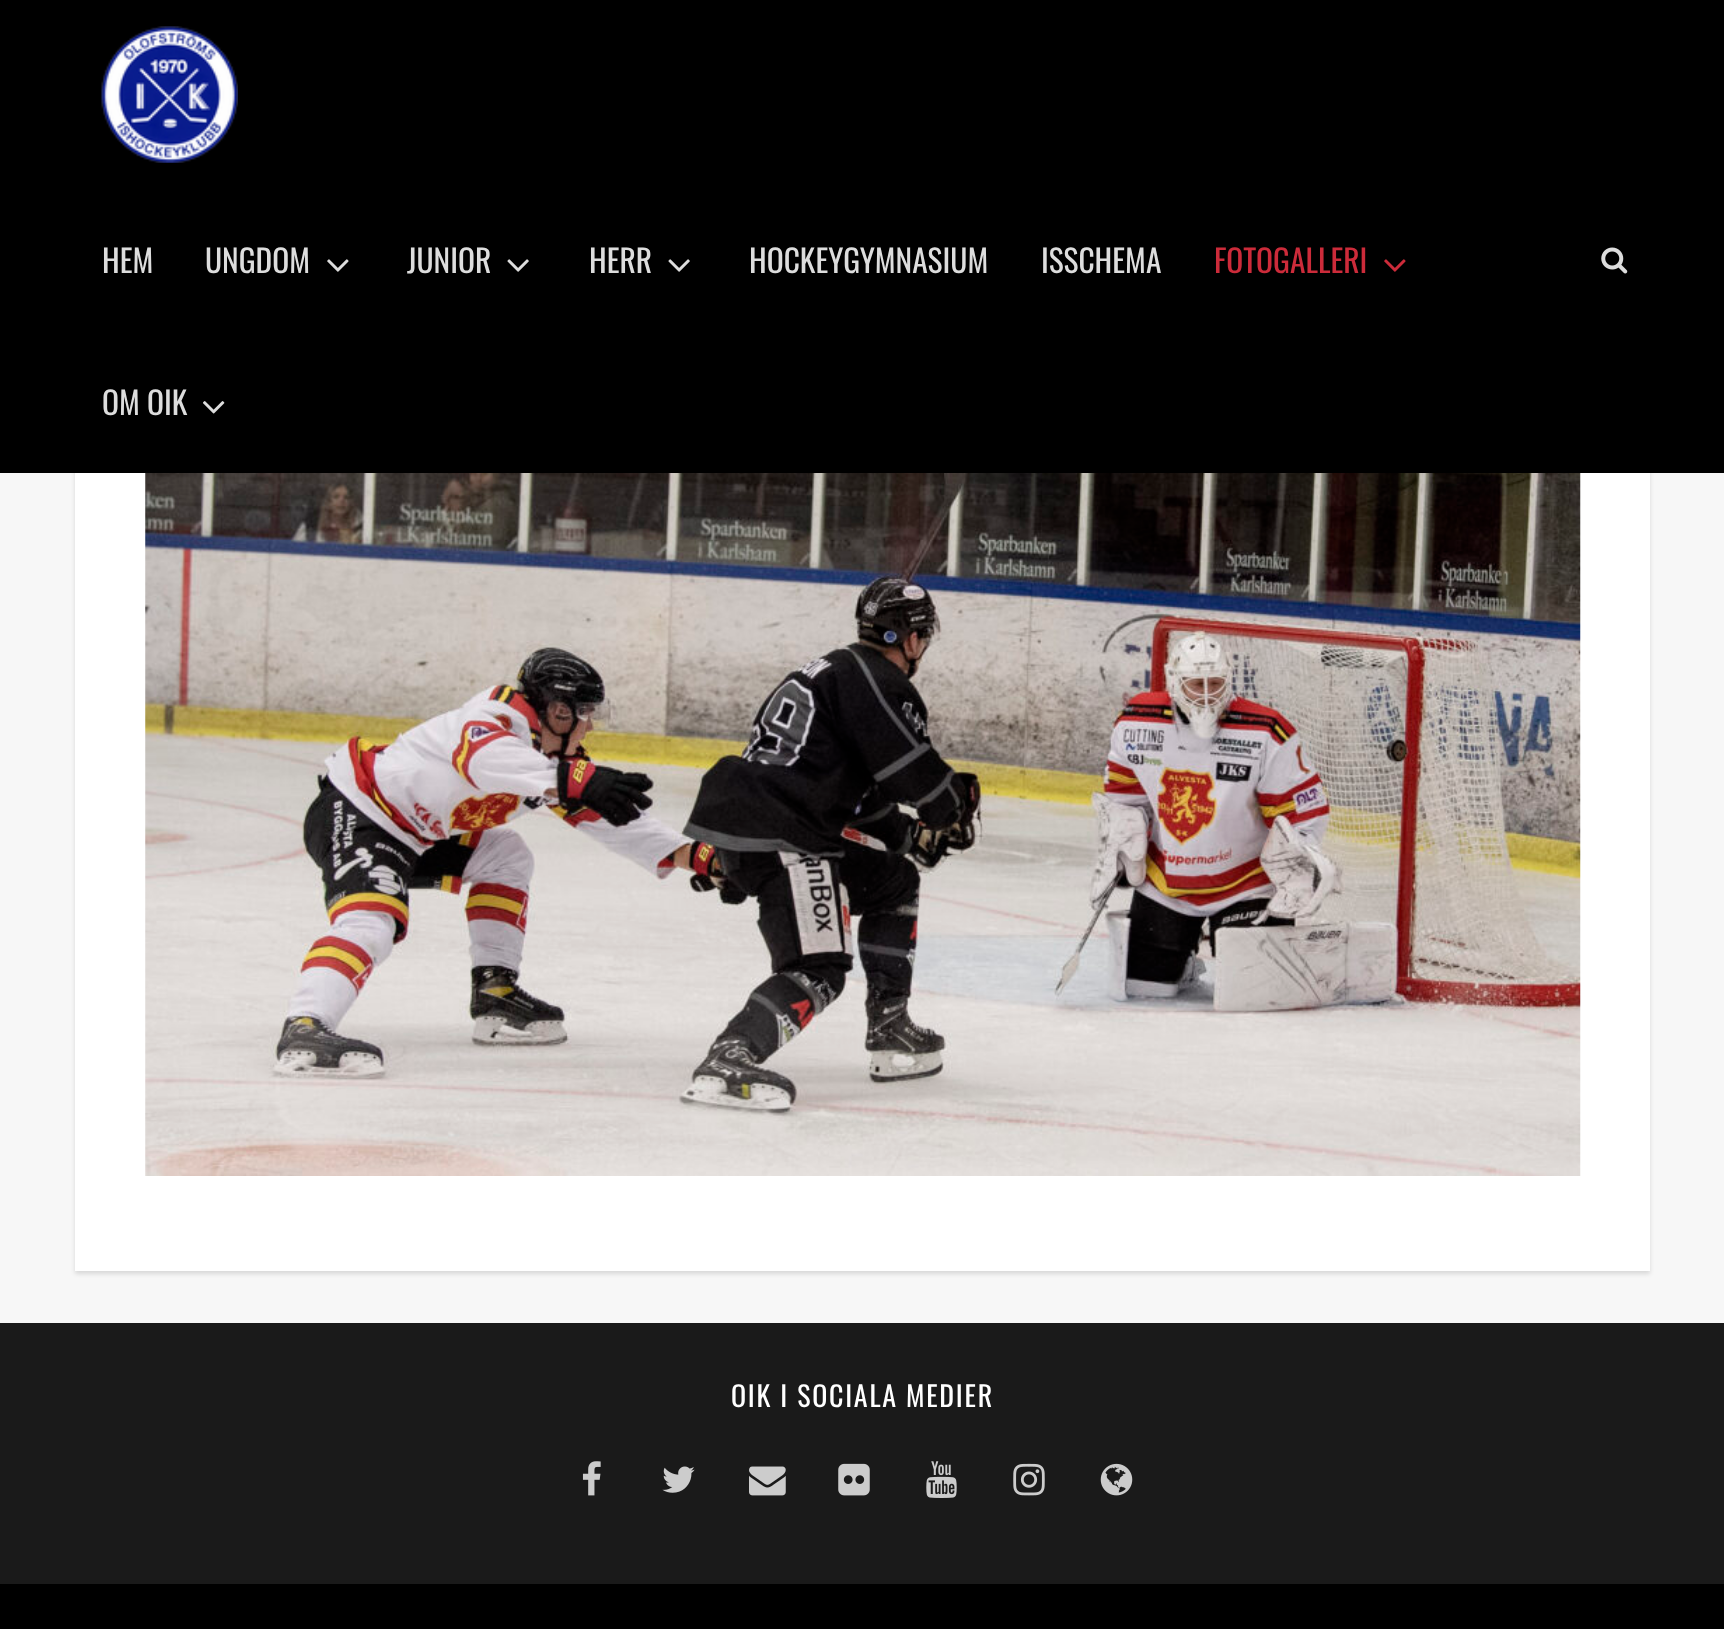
<?xml version="1.0" encoding="UTF-8"?>
<svg xmlns="http://www.w3.org/2000/svg" xmlns:xlink="http://www.w3.org/1999/xlink" width="1724" height="1629">
  <rect width="100%" height="100%" fill="#f7f7f7" />
  <rect x="75" y="198" width="1575" height="1076" fill="#000000" fill-opacity="0.12" filter="blur(2px)" />
  <rect width="1724" height="473" fill="#000000" />
  <image x="101" y="26" width="137" height="137" xlink:href="image1.png" />
  <image x="327" y="259" width="22" height="13" xlink:href="image2.png" />
  <image x="507" y="259" width="22" height="13" xlink:href="image3.png" />
  <image x="668" y="259" width="22" height="13" xlink:href="image3.png" />
  <image x="1384" y="259" width="22" height="13" xlink:href="image4.png" />
  <image x="203" y="401" width="22" height="13" xlink:href="image5.png" />
  <image x="1601" y="247" width="27" height="27" xlink:href="image6.png" />
  <rect x="75" y="473" width="1575" height="798" fill="#ffffff" />
  <image x="145" y="473" width="1436" height="703" xlink:href="image7.png" />
  <rect y="1323" width="1724" height="261" fill="#1a1a1a" />
  <image x="582" y="1461" width="19" height="35" xlink:href="image8.png" />
  <image x="662" y="1466" width="33" height="27" xlink:href="image9.png" />
  <image x="749" y="1466" width="37" height="30" xlink:href="image10.png" />
  <image x="838" y="1463" width="32" height="33" xlink:href="image11.png" />
  <image x="926" y="1461" width="31" height="37" xlink:href="image12.png" />
  <image x="1013" y="1463" width="32" height="33" xlink:href="image13.png" />
  <image x="1100" y="1463" width="33" height="33" xlink:href="image14.png" />
  <rect y="1584" width="1724" height="45" fill="#000000" />
  <text x="102" y="273" style="font-family: Oswald; font-size: 31.5px; fill: #dddddd">HEM</text>
  <text x="205" y="273" style="font-family: Oswald; font-size: 31.5px; fill: #dddddd">UNGDOM</text>
  <text x="407" y="273" style="font-family: Oswald; font-size: 31.5px; fill: #dddddd">JUNIOR</text>
  <text x="589" y="273" style="font-family: Oswald; font-size: 31.5px; fill: #dddddd">HERR</text>
  <text x="749" y="273" style="font-family: Oswald; font-size: 31.5px; fill: #dddddd">HOCKEYGYMNASIUM</text>
  <text x="1041" y="273" style="font-family: Oswald; font-size: 31.5px; fill: #dddddd">ISSCHEMA</text>
  <text x="1214" y="273" style="font-family: Oswald; font-size: 31.5px; fill: #cc2b3a">FOTOGALLERI</text>
  <text x="102" y="415" style="font-family: Oswald; font-size: 31.5px; fill: #dddddd">OM OIK</text>
  <text x="731" y="1407" style="font-family: Oswald; font-size: 28px; letter-spacing: 1.75px; fill: #ffffff">OIK I SOCIALA MEDIER</text>
</svg>
